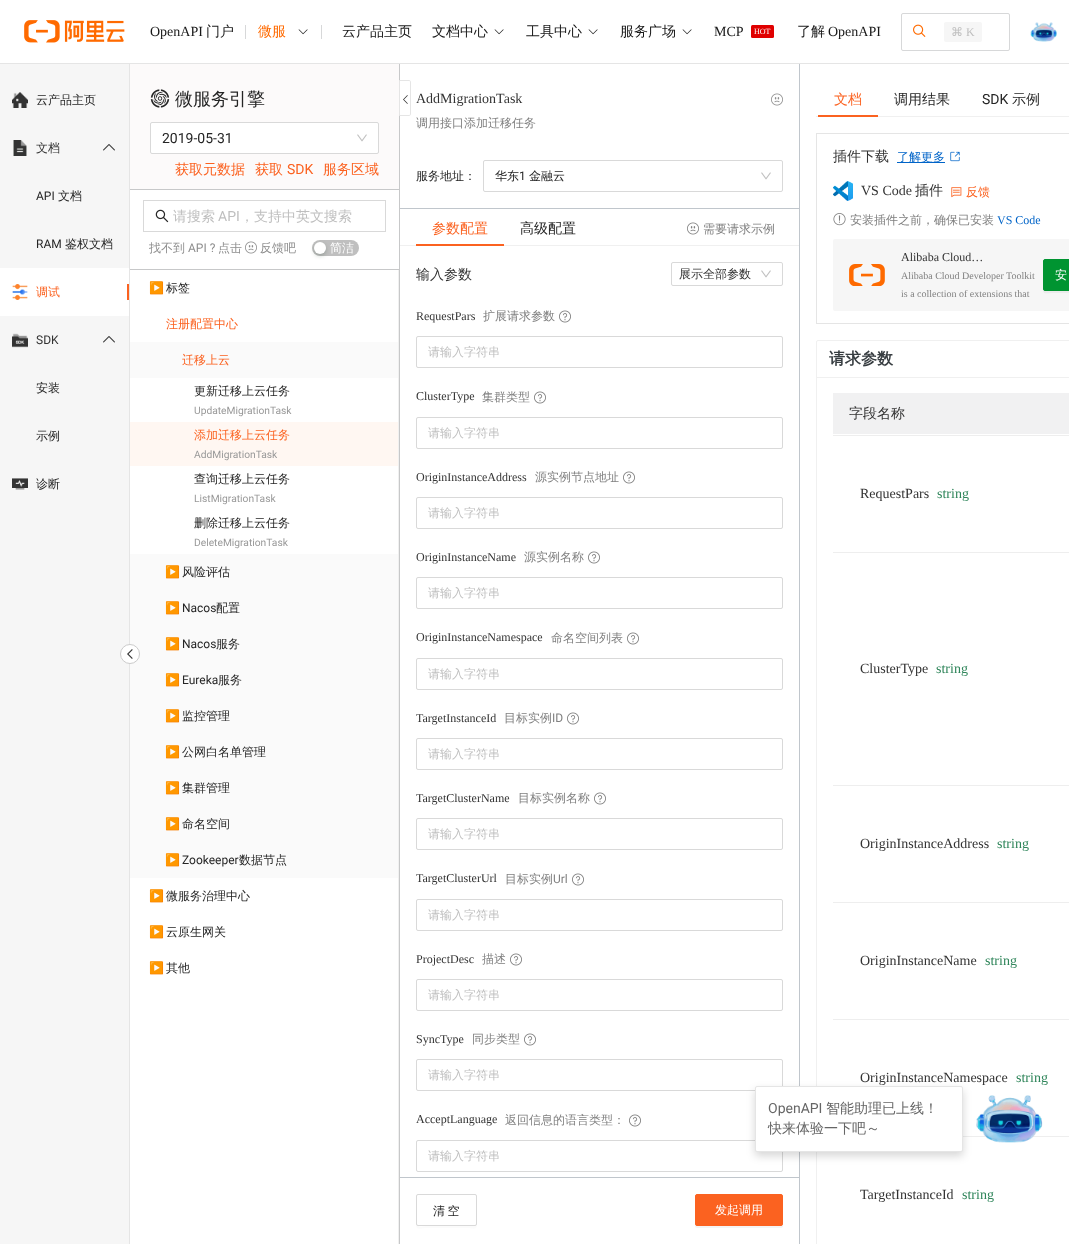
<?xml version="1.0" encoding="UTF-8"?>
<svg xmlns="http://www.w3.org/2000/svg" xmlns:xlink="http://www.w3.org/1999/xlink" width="1069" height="1244">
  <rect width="100%" height="100%" fill="#ffffff" />
  <rect y="63" width="1069" height="1" fill="#e5e5e5" />
  <image x="24" y="20" width="101" height="23" xlink:href="image1.png" />
  <rect x="245" y="25" width="1" height="14" fill="#d7d8d9" />
  <image x="298" y="29" width="10" height="6" xlink:href="image2.png" />
  <rect x="321" y="25" width="1" height="14" fill="#d7d8d9" />
  <image x="494" y="29" width="10" height="6" xlink:href="image2.png" />
  <image x="588" y="29" width="10" height="6" xlink:href="image2.png" />
  <image x="682" y="29" width="10" height="6" xlink:href="image2.png" />
  <rect x="751" y="25" width="23" height="13" rx="1.5" fill="#e00000" />
  <rect x="901.5" y="13.5" width="108" height="37" rx="1.5" fill="none" stroke="#d7d8d9" />
  <image x="913" y="24" width="13" height="13" xlink:href="image3.png" />
  <rect x="944" y="22" width="38" height="20" rx="2" fill="#f6f6f6" />
  <image x="1030" y="22" width="27" height="20" xlink:href="image4.png" />
  <rect y="64" width="129" height="1180" fill="#f6f6f6" />
  <rect x="129" y="64" width="1" height="1180" fill="#e5e5e5" />
  <image x="12" y="92" width="16" height="16" xlink:href="image5.png" />
  <image x="13" y="140" width="14" height="16" xlink:href="image6.png" />
  <image x="103" y="144" width="12" height="7" xlink:href="image7.png" />
  <rect y="268" width="129" height="48" fill="#ffffff" />
  <image x="12" y="284" width="16" height="16" xlink:href="image8.png" />
  <rect x="127" y="284" width="2" height="16" fill="#fb6220" />
  <image x="12" y="333" width="16" height="15" xlink:href="image9.png" />
  <image x="103" y="336" width="12" height="7" xlink:href="image7.png" />
  <image x="12" y="478" width="16" height="12" xlink:href="image10.png" />
  <rect x="130" y="342" width="268" height="536" fill="#fafafa" />
  <circle cx="130" cy="654" r="9.5" fill="#ffffff" stroke="#cbcbcb" />
  <image x="127" y="649" width="6" height="10" xlink:href="image11.png" />
  <rect x="130" y="64" width="269" height="125" fill="#fcfafa" />
  <rect x="399" y="64" width="1" height="1180" fill="#c7c8c9" />
  <rect x="130" y="189" width="269" height="1" fill="#c7c8c9" />
  <image x="150" y="89" width="20" height="19" xlink:href="image12.png" />
  <rect x="150.5" y="122.5" width="228" height="31" rx="1.5" fill="#ffffff" stroke="#d9d9d9" />
  <image x="357" y="134" width="10" height="8" xlink:href="image13.png" />
  <rect x="143.5" y="200.5" width="242" height="31" fill="none" stroke="#d9d9d9" />
  <image x="155" y="209" width="14" height="14" xlink:href="image14.png" />
  <image x="245" y="241" width="12" height="13" xlink:href="image15.png" />
  <rect x="312" y="240" width="47" height="16" rx="8" fill="#bfbfbf" />
  <rect x="314" y="244" width="12" height="12" rx="6" fill="#00230b" fill-opacity="0.2" filter="blur(2px)" />
  <circle cx="320" cy="248" r="6" fill="#ffffff" />
  <rect x="130" y="269" width="269" height="1" fill="#c7c8c9" />
  <rect x="398" y="270" width="1" height="974" fill="#f0f0f0" />
  <rect x="130" y="378" width="268" height="44" fill="#ffffff" />
  <rect x="130" y="422" width="268" height="44" fill="#fff7f2" />
  <rect x="130" y="466" width="268" height="88" fill="#ffffff" />
  <path d="M 399.5 80.5 h 9.5 c 1 0 1.5 0.5 1.5 1.5 v 32 c 0 1 -0.5 1.5 -1.5 1.5 h -9.5 z" fill="#ffffff" stroke="#e5e5e5" />
  <image x="403" y="95" width="5" height="9" xlink:href="image16.png" />
  <rect x="799" y="64" width="1" height="1180" fill="#c0c6cc" />
  <rect x="400" y="208" width="399" height="1" fill="#c0c6cc" />
  <image x="771" y="93" width="12" height="13" xlink:href="image15.png" />
  <rect x="483.5" y="160.5" width="299" height="31" rx="1.5" fill="none" stroke="#d9d9d9" />
  <image x="761" y="172" width="10" height="8" xlink:href="image13.png" />
  <rect x="400" y="245" width="399" height="1" fill="#f0f0f0" />
  <rect x="416" y="244" width="88" height="2" fill="#fb6220" />
  <image x="687" y="222" width="12" height="13" xlink:href="image17.png" />
  <rect x="671.5" y="262.5" width="111" height="23" rx="1.5" fill="none" stroke="#d9d9d9" />
  <image x="761" y="270" width="10" height="8" xlink:href="image13.png" />
  <image x="559" y="310" width="12" height="13" xlink:href="image18.png" />
  <rect x="416.5" y="336.5" width="366" height="31" rx="1.5" fill="none" stroke="#d9d9d9" />
  <image x="534" y="391" width="12" height="13" xlink:href="image18.png" />
  <rect x="416.5" y="417.5" width="366" height="31" rx="1.5" fill="none" stroke="#d9d9d9" />
  <image x="623" y="471" width="12" height="13" xlink:href="image18.png" />
  <rect x="416.5" y="497.5" width="366" height="31" rx="1.5" fill="none" stroke="#d9d9d9" />
  <image x="588" y="551" width="12" height="13" xlink:href="image18.png" />
  <rect x="416.5" y="577.5" width="366" height="31" rx="1.5" fill="none" stroke="#d9d9d9" />
  <image x="627" y="632" width="12" height="13" xlink:href="image18.png" />
  <rect x="416.5" y="658.5" width="366" height="31" rx="1.5" fill="none" stroke="#d9d9d9" />
  <image x="567" y="712" width="12" height="13" xlink:href="image18.png" />
  <rect x="416.5" y="738.5" width="366" height="31" rx="1.5" fill="none" stroke="#d9d9d9" />
  <image x="594" y="792" width="12" height="13" xlink:href="image18.png" />
  <rect x="416.5" y="818.5" width="366" height="31" rx="1.5" fill="none" stroke="#d9d9d9" />
  <image x="572" y="873" width="12" height="13" xlink:href="image18.png" />
  <rect x="416.5" y="899.5" width="366" height="31" rx="1.5" fill="none" stroke="#d9d9d9" />
  <image x="510" y="953" width="12" height="13" xlink:href="image18.png" />
  <rect x="416.5" y="979.5" width="366" height="31" rx="1.5" fill="none" stroke="#d9d9d9" />
  <image x="524" y="1033" width="12" height="13" xlink:href="image18.png" />
  <rect x="416.5" y="1059.5" width="366" height="31" rx="1.5" fill="none" stroke="#d9d9d9" />
  <image x="629" y="1114" width="12" height="13" xlink:href="image18.png" />
  <rect x="416.5" y="1140.5" width="366" height="31" rx="1.5" fill="none" stroke="#d9d9d9" />
  <rect x="400" y="1177" width="399" height="1" fill="#c0c6cc" />
  <path d="M 416 1224 c 0 7 4 4 12 4 h 38 c 7 0 11 3 11 -4 l -1 2 h -48 c -4 0 -9 2 -11 -1 z" fill="#fbfbfb" />
  <rect x="416.5" y="1194.5" width="60" height="31" rx="1.5" fill="none" stroke="#d9d9d9" />
  <path d="M 695 1224 v 2 c 0 1 1 2 2 2 h 84 c 1 0 2 -1 2 -2 v -2 c 0 1 -1 2 -2 2 h -84 c -1 0 -2 -1 -2 -2 z" fill="#f4f4f4" />
  <rect x="695.5" y="1194.5" width="87" height="31" rx="1.5" fill="#fb6220" stroke="#fb6220" />
  <rect x="816" y="116" width="253" height="1" fill="#f0f0f0" />
  <rect x="818" y="115" width="60" height="2" fill="#fb6220" />
  <rect x="816.5" y="133.5" width="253" height="190" fill="none" stroke="#e5e5e5" />
  <rect x="897" y="162" width="48" height="1" fill="#0064c8" />
  <image x="950" y="151" width="10" height="11" xlink:href="image19.png" />
  <image x="833" y="181" width="20" height="20" xlink:href="image20.png" />
  <image x="951" y="187" width="11" height="11" xlink:href="image21.png" />
  <image x="833" y="213" width="13" height="13" xlink:href="image22.png" />
  <rect x="833" y="239" width="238" height="72" rx="2" fill="#f6f6f6" />
  <image x="849" y="264" width="36" height="22" xlink:href="image23.png" />
  <path d="M 1043 289 c 0 6 3 4 10 4 h 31 c 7 0 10 2 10 -4 c 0 1 -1 2 -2 2 h -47 c -1 0 -2 -1 -2 -2 z" fill="#ebebeb" />
  <rect x="1043.5" y="259.5" width="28" height="31" rx="1.5" fill="#009431" stroke="#009431" />
  <rect x="816.5" y="340.5" width="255" height="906" rx="1.5" fill="none" stroke="#f0f0f0" />
  <rect x="817" y="377" width="252" height="1" fill="#f0f0f0" />
  <rect x="833" y="393" width="236" height="41" fill="#f1f1f2" />
  <rect x="833" y="435" width="236" height="1" fill="#eeeeee" />
  <rect x="833" y="552" width="236" height="1" fill="#eeeeee" />
  <rect x="833" y="785" width="236" height="1" fill="#eeeeee" />
  <rect x="833" y="902" width="236" height="1" fill="#eeeeee" />
  <rect x="833" y="1019" width="236" height="1" fill="#eeeeee" />
  <rect x="963" y="1136" width="106" height="1" fill="#eeeeee" />
  <image x="976" y="1095" width="67" height="48" xlink:href="image24.png" />
  <rect x="755" y="1090" width="208" height="66" rx="2" fill="#000000" fill-opacity="0.16" filter="blur(4px)" />
  <rect x="755.5" y="1086.5" width="207" height="65" rx="1.5" fill="#ffffff" stroke="#e5e5e5" />
  <text x="150" y="36" style="font-family: Liberation Serif; font-size: 14px; fill: #181818">OpenAPI</text>
  <text x="206" y="36" style="font-family: WenQuanYi Zen Hei; font-size: 14px; font-weight: 500; fill: #181818">门户</text>
  <text x="258" y="36" style="font-family: WenQuanYi Zen Hei; font-size: 14px; font-weight: 500; fill: #ff6a00">微服</text>
  <text x="342" y="36" style="font-family: WenQuanYi Zen Hei; font-size: 14px; font-weight: 500; fill: #181818">云产品主页</text>
  <text x="432" y="36" style="font-family: WenQuanYi Zen Hei; font-size: 14px; font-weight: 500; fill: #181818">文档中心</text>
  <text x="526" y="36" style="font-family: WenQuanYi Zen Hei; font-size: 14px; font-weight: 500; fill: #181818">工具中心</text>
  <text x="620" y="36" style="font-family: WenQuanYi Zen Hei; font-size: 14px; font-weight: 500; fill: #181818">服务广场</text>
  <text x="714" y="36" style="font-family: Liberation Serif; font-size: 14px; fill: #181818">MCP</text>
  <text x="754" y="34" style="font-family: Liberation Serif; font-size: 8px; fill: #ffffff">HOT</text>
  <text x="797" y="36" style="font-family: WenQuanYi Zen Hei; font-size: 14px; font-weight: 500; fill: #181818">了解</text>
  <text x="828" y="36" style="font-family: Liberation Serif; font-size: 14px; fill: #181818">OpenAPI</text>
  <text x="951" y="36" style="font-family: DejaVu Sans; font-size: 12px; fill: #bfbfbf">⌘</text>
  <text x="966" y="36" style="font-family: Liberation Serif; font-size: 12px; fill: #bfbfbf">K</text>
  <text x="36" y="104" style="font-family: WenQuanYi Zen Hei; font-size: 12px; font-weight: 500; fill: #252525">云产品主页</text>
  <text x="36" y="152" style="font-family: WenQuanYi Zen Hei; font-size: 12px; font-weight: 500; fill: #333333">文档</text>
  <text x="36" y="200" style="font-family: Roboto; font-size: 12px; fill: #252525">API</text>
  <text x="58" y="200" style="font-family: WenQuanYi Zen Hei; font-size: 12px; font-weight: 500; fill: #252525">文档</text>
  <text x="36" y="248" style="font-family: Roboto; font-size: 12px; fill: #252525">RAM</text>
  <text x="65" y="248" style="font-family: WenQuanYi Zen Hei; font-size: 12px; font-weight: 500; fill: #252525">鉴权文档</text>
  <text x="36" y="296" style="font-family: WenQuanYi Zen Hei; font-size: 12px; font-weight: 500; fill: #fb6220">调试</text>
  <text x="36" y="344" style="font-family: Roboto; font-size: 12px; fill: #333333">SDK</text>
  <text x="36" y="392" style="font-family: WenQuanYi Zen Hei; font-size: 12px; font-weight: 500; fill: #252525">安装</text>
  <text x="36" y="440" style="font-family: WenQuanYi Zen Hei; font-size: 12px; font-weight: 500; fill: #252525">示例</text>
  <text x="36" y="488" style="font-family: WenQuanYi Zen Hei; font-size: 12px; font-weight: 500; fill: #252525">诊断</text>
  <text x="175" y="105" style="font-family: WenQuanYi Zen Hei; font-size: 18px; font-weight: 500; fill: #252525">微服务引擎</text>
  <text x="162" y="143" style="font-family: Roboto; font-size: 14px; fill: #252525">2019-05-31</text>
  <text x="175" y="174" style="font-family: WenQuanYi Zen Hei; font-size: 14px; font-weight: 500; fill: #fb6220">获取元数据</text>
  <text x="255" y="174" style="font-family: WenQuanYi Zen Hei; font-size: 14px; font-weight: 500; fill: #fb6220">获取</text>
  <text x="287" y="174" style="font-family: Roboto; font-size: 14px; fill: #fb6220">SDK</text>
  <text x="323" y="174" style="font-family: WenQuanYi Zen Hei; font-size: 14px; font-weight: 500; fill: #fb6220">服务区域</text>
  <text x="173" y="221" style="font-family: WenQuanYi Zen Hei; font-size: 14px; font-weight: 500; fill: #bfbfbf">请搜索</text>
  <text x="218" y="221" style="font-family: Roboto; font-size: 14px; fill: #bfbfbf">API</text>
  <text x="240" y="221" style="font-family: WenQuanYi Zen Hei; font-size: 14px; font-weight: 500; fill: #bfbfbf">，支持中英文搜索</text>
  <text x="149" y="252" style="font-family: WenQuanYi Zen Hei; font-size: 12px; font-weight: 500; fill: #8e8e8e">找不到</text>
  <text x="188" y="252" style="font-family: Roboto; font-size: 12px; fill: #8e8e8e">API ?</text>
  <text x="218" y="252" style="font-family: WenQuanYi Zen Hei; font-size: 12px; font-weight: 500; fill: #8e8e8e">点击</text>
  <text x="260" y="252" style="font-family: WenQuanYi Zen Hei; font-size: 12px; font-weight: 500; fill: #8e8e8e">反馈吧</text>
  <text x="330" y="252" style="font-family: WenQuanYi Zen Hei; font-size: 12px; font-weight: 500; fill: #ffffff">简洁</text>
  <text x="149" y="292" style="font-family: Noto Color Emoji; font-size: 12px; letter-spacing: -7px; fill: #555555">▶</text>
  <text x="166" y="292" style="font-family: WenQuanYi Zen Hei; font-size: 12px; font-weight: 500; fill: #252525">标签</text>
  <text x="166" y="328" style="font-family: WenQuanYi Zen Hei; font-size: 12px; font-weight: 500; fill: #fb6220">注册配置中心</text>
  <text x="182" y="364" style="font-family: WenQuanYi Zen Hei; font-size: 12px; font-weight: 500; fill: #fb6220">迁移上云</text>
  <text x="194" y="395" style="font-family: WenQuanYi Zen Hei; font-size: 12px; font-weight: 500; fill: #252525">更新迁移上云任务</text>
  <text x="194" y="414" style="font-family: Roboto; font-size: 10.25px; fill: #999999">UpdateMigrationTask</text>
  <text x="194" y="439" style="font-family: WenQuanYi Zen Hei; font-size: 12px; font-weight: 500; fill: #fb6220">添加迁移上云任务</text>
  <text x="194" y="458" style="font-family: Roboto; font-size: 10.25px; fill: #999999">AddMigrationTask</text>
  <text x="194" y="483" style="font-family: WenQuanYi Zen Hei; font-size: 12px; font-weight: 500; fill: #252525">查询迁移上云任务</text>
  <text x="194" y="502" style="font-family: Roboto; font-size: 10.25px; fill: #999999">ListMigrationTask</text>
  <text x="194" y="527" style="font-family: WenQuanYi Zen Hei; font-size: 12px; font-weight: 500; fill: #252525">删除迁移上云任务</text>
  <text x="194" y="546" style="font-family: Roboto; font-size: 10.25px; fill: #999999">DeleteMigrationTask</text>
  <text x="165" y="576" style="font-family: Noto Color Emoji; font-size: 12px; letter-spacing: -7px; fill: #555555">▶</text>
  <text x="182" y="576" style="font-family: WenQuanYi Zen Hei; font-size: 12px; font-weight: 500; fill: #252525">风险评估</text>
  <text x="165" y="612" style="font-family: Noto Color Emoji; font-size: 12px; letter-spacing: -7px; fill: #555555">▶</text>
  <text x="182" y="612" style="font-family: Roboto; font-size: 12px; fill: #252525">Nacos</text>
  <text x="216" y="612" style="font-family: WenQuanYi Zen Hei; font-size: 12px; font-weight: 500; fill: #252525">配置</text>
  <text x="165" y="648" style="font-family: Noto Color Emoji; font-size: 12px; letter-spacing: -7px; fill: #555555">▶</text>
  <text x="182" y="648" style="font-family: Roboto; font-size: 12px; fill: #252525">Nacos</text>
  <text x="216" y="648" style="font-family: WenQuanYi Zen Hei; font-size: 12px; font-weight: 500; fill: #252525">服务</text>
  <text x="165" y="684" style="font-family: Noto Color Emoji; font-size: 12px; letter-spacing: -7px; fill: #555555">▶</text>
  <text x="182" y="684" style="font-family: Roboto; font-size: 12px; fill: #252525">Eureka</text>
  <text x="218" y="684" style="font-family: WenQuanYi Zen Hei; font-size: 12px; font-weight: 500; fill: #252525">服务</text>
  <text x="165" y="720" style="font-family: Noto Color Emoji; font-size: 12px; letter-spacing: -7px; fill: #555555">▶</text>
  <text x="182" y="720" style="font-family: WenQuanYi Zen Hei; font-size: 12px; font-weight: 500; fill: #252525">监控管理</text>
  <text x="165" y="756" style="font-family: Noto Color Emoji; font-size: 12px; letter-spacing: -7px; fill: #555555">▶</text>
  <text x="182" y="756" style="font-family: WenQuanYi Zen Hei; font-size: 12px; font-weight: 500; fill: #252525">公网白名单管理</text>
  <text x="165" y="792" style="font-family: Noto Color Emoji; font-size: 12px; letter-spacing: -7px; fill: #555555">▶</text>
  <text x="182" y="792" style="font-family: WenQuanYi Zen Hei; font-size: 12px; font-weight: 500; fill: #252525">集群管理</text>
  <text x="165" y="828" style="font-family: Noto Color Emoji; font-size: 12px; letter-spacing: -7px; fill: #555555">▶</text>
  <text x="182" y="828" style="font-family: WenQuanYi Zen Hei; font-size: 12px; font-weight: 500; fill: #252525">命名空间</text>
  <text x="165" y="864" style="font-family: Noto Color Emoji; font-size: 12px; letter-spacing: -7px; fill: #555555">▶</text>
  <text x="182" y="864" style="font-family: Roboto; font-size: 12px; fill: #252525">Zookeeper</text>
  <text x="239" y="864" style="font-family: WenQuanYi Zen Hei; font-size: 12px; font-weight: 500; fill: #252525">数据节点</text>
  <text x="149" y="900" style="font-family: Noto Color Emoji; font-size: 12px; letter-spacing: -7px; fill: #555555">▶</text>
  <text x="166" y="900" style="font-family: WenQuanYi Zen Hei; font-size: 12px; font-weight: 500; fill: #252525">微服务治理中心</text>
  <text x="149" y="936" style="font-family: Noto Color Emoji; font-size: 12px; letter-spacing: -7px; fill: #555555">▶</text>
  <text x="166" y="936" style="font-family: WenQuanYi Zen Hei; font-size: 12px; font-weight: 500; fill: #252525">云原生网关</text>
  <text x="149" y="972" style="font-family: Noto Color Emoji; font-size: 12px; letter-spacing: -7px; fill: #555555">▶</text>
  <text x="166" y="972" style="font-family: WenQuanYi Zen Hei; font-size: 12px; font-weight: 500; fill: #252525">其他</text>
  <text x="416" y="103" style="font-family: Liberation Serif; font-size: 14px; fill: #333333">AddMigrationTask</text>
  <text x="416" y="127" style="font-family: WenQuanYi Zen Hei; font-size: 12px; font-weight: 500; fill: #808080">调用接口添加迁移任务</text>
  <text x="416" y="180" style="font-family: WenQuanYi Zen Hei; font-size: 12px; font-weight: 500; fill: #252525">服务地址：</text>
  <text x="495" y="180" style="font-family: WenQuanYi Zen Hei; font-size: 12px; font-weight: 500; fill: #252525">华东</text>
  <text x="519" y="180" style="font-family: Roboto; font-size: 12px; fill: #252525">1</text>
  <text x="529" y="180" style="font-family: WenQuanYi Zen Hei; font-size: 12px; font-weight: 500; fill: #252525">金融云</text>
  <text x="432" y="233" style="font-family: WenQuanYi Zen Hei; font-size: 14px; font-weight: 500; fill: #fb6220">参数配置</text>
  <text x="520" y="233" style="font-family: WenQuanYi Zen Hei; font-size: 14px; font-weight: 500; fill: #252525">高级配置</text>
  <text x="703" y="233" style="font-family: WenQuanYi Zen Hei; font-size: 12px; font-weight: 500; fill: #808080">需要请求示例</text>
  <text x="416" y="279" style="font-family: WenQuanYi Zen Hei; font-size: 14px; font-weight: 500; fill: #333333">输入参数</text>
  <text x="679" y="278" style="font-family: WenQuanYi Zen Hei; font-size: 12px; font-weight: 500; fill: #333333">展示全部参数</text>
  <text x="416" y="320" style="font-family: Liberation Serif; font-size: 12px; fill: #333333">RequestPars</text>
  <text x="483" y="320" style="font-family: WenQuanYi Zen Hei; font-size: 12px; font-weight: 500; fill: #808080">扩展请求参数</text>
  <text x="428" y="356" style="font-family: WenQuanYi Zen Hei; font-size: 12px; font-weight: 500; fill: #bfbfbf">请输入字符串</text>
  <text x="416" y="400" style="font-family: Liberation Serif; font-size: 12px; fill: #333333">ClusterType</text>
  <text x="482" y="401" style="font-family: WenQuanYi Zen Hei; font-size: 12px; font-weight: 500; fill: #808080">集群类型</text>
  <text x="428" y="437" style="font-family: WenQuanYi Zen Hei; font-size: 12px; font-weight: 500; fill: #bfbfbf">请输入字符串</text>
  <text x="416" y="481" style="font-family: Liberation Serif; font-size: 12px; fill: #333333">OriginInstanceAddress</text>
  <text x="535" y="481" style="font-family: WenQuanYi Zen Hei; font-size: 12px; font-weight: 500; fill: #808080">源实例节点地址</text>
  <text x="428" y="517" style="font-family: WenQuanYi Zen Hei; font-size: 12px; font-weight: 500; fill: #bfbfbf">请输入字符串</text>
  <text x="416" y="561" style="font-family: Liberation Serif; font-size: 12px; fill: #333333">OriginInstanceName</text>
  <text x="524" y="561" style="font-family: WenQuanYi Zen Hei; font-size: 12px; font-weight: 500; fill: #808080">源实例名称</text>
  <text x="428" y="597" style="font-family: WenQuanYi Zen Hei; font-size: 12px; font-weight: 500; fill: #bfbfbf">请输入字符串</text>
  <text x="416" y="641" style="font-family: Liberation Serif; font-size: 12px; fill: #333333">OriginInstanceNamespace</text>
  <text x="551" y="642" style="font-family: WenQuanYi Zen Hei; font-size: 12px; font-weight: 500; fill: #808080">命名空间列表</text>
  <text x="428" y="678" style="font-family: WenQuanYi Zen Hei; font-size: 12px; font-weight: 500; fill: #bfbfbf">请输入字符串</text>
  <text x="416" y="722" style="font-family: Liberation Serif; font-size: 12px; fill: #333333">TargetInstanceId</text>
  <text x="504" y="722" style="font-family: WenQuanYi Zen Hei; font-size: 12px; font-weight: 500; fill: #808080">目标实例</text>
  <text x="552" y="722" style="font-family: Roboto; font-size: 12px; fill: #808080">ID</text>
  <text x="428" y="758" style="font-family: WenQuanYi Zen Hei; font-size: 12px; font-weight: 500; fill: #bfbfbf">请输入字符串</text>
  <text x="416" y="802" style="font-family: Liberation Serif; font-size: 12px; fill: #333333">TargetClusterName</text>
  <text x="518" y="802" style="font-family: WenQuanYi Zen Hei; font-size: 12px; font-weight: 500; fill: #808080">目标实例名称</text>
  <text x="428" y="838" style="font-family: WenQuanYi Zen Hei; font-size: 12px; font-weight: 500; fill: #bfbfbf">请输入字符串</text>
  <text x="416" y="882" style="font-family: Liberation Serif; font-size: 12px; fill: #333333">TargetClusterUrl</text>
  <text x="505" y="883" style="font-family: WenQuanYi Zen Hei; font-size: 12px; font-weight: 500; fill: #808080">目标实例</text>
  <text x="553" y="883" style="font-family: Roboto; font-size: 12px; fill: #808080">Url</text>
  <text x="428" y="919" style="font-family: WenQuanYi Zen Hei; font-size: 12px; font-weight: 500; fill: #bfbfbf">请输入字符串</text>
  <text x="416" y="963" style="font-family: Liberation Serif; font-size: 12px; fill: #333333">ProjectDesc</text>
  <text x="482" y="963" style="font-family: WenQuanYi Zen Hei; font-size: 12px; font-weight: 500; fill: #808080">描述</text>
  <text x="428" y="999" style="font-family: WenQuanYi Zen Hei; font-size: 12px; font-weight: 500; fill: #bfbfbf">请输入字符串</text>
  <text x="416" y="1043" style="font-family: Liberation Serif; font-size: 12px; fill: #333333">SyncType</text>
  <text x="472" y="1043" style="font-family: WenQuanYi Zen Hei; font-size: 12px; font-weight: 500; fill: #808080">同步类型</text>
  <text x="428" y="1079" style="font-family: WenQuanYi Zen Hei; font-size: 12px; font-weight: 500; fill: #bfbfbf">请输入字符串</text>
  <text x="416" y="1123" style="font-family: Liberation Serif; font-size: 12px; fill: #333333">AcceptLanguage</text>
  <text x="505" y="1124" style="font-family: WenQuanYi Zen Hei; font-size: 12px; font-weight: 500; fill: #808080">返回信息的语言类型：</text>
  <text x="428" y="1160" style="font-family: WenQuanYi Zen Hei; font-size: 12px; font-weight: 500; fill: #bfbfbf">请输入字符串</text>
  <text x="433" y="1215" word-spacing="-1" style="font-family: WenQuanYi Zen Hei; font-size: 12px; font-weight: 500; fill: #252525">清 空</text>
  <text x="715" y="1214" style="font-family: WenQuanYi Zen Hei; font-size: 12px; font-weight: 500; fill: #ffffff">发起调用</text>
  <text x="834" y="104" style="font-family: WenQuanYi Zen Hei; font-size: 14px; font-weight: 500; fill: #fb6220">文档</text>
  <text x="894" y="104" style="font-family: WenQuanYi Zen Hei; font-size: 14px; font-weight: 500; fill: #252525">调用结果</text>
  <text x="982" y="104" style="font-family: Roboto; font-size: 14px; fill: #252525">SDK</text>
  <text x="1012" y="104" style="font-family: WenQuanYi Zen Hei; font-size: 14px; font-weight: 500; fill: #252525">示例</text>
  <text x="833" y="161" style="font-family: WenQuanYi Zen Hei; font-size: 14px; font-weight: 500; fill: #333333">插件下载</text>
  <text x="897" y="161" style="font-family: WenQuanYi Zen Hei; font-size: 12px; font-weight: 500; fill: #0064c8">了解更多</text>
  <text x="861" y="195" style="font-family: Liberation Serif; font-size: 14px; fill: #333333">VS Code</text>
  <text x="915" y="195" style="font-family: WenQuanYi Zen Hei; font-size: 14px; font-weight: 500; fill: #333333">插件</text>
  <text x="966" y="196" style="font-family: WenQuanYi Zen Hei; font-size: 12px; font-weight: 500; fill: #fb6220">反馈</text>
  <text x="850" y="224" style="font-family: WenQuanYi Zen Hei; font-size: 12px; font-weight: 500; fill: #808080">安装插件之前，确保已安装</text>
  <text x="997" y="224" style="font-family: Liberation Serif; font-size: 12px; fill: #0064c8">VS Code</text>
  <text x="901" y="261" style="font-family: Liberation Serif; font-size: 12px; fill: #333333">Alibaba Cloud…</text>
  <text x="901" y="279" style="font-family: Liberation Serif; font-size: 10px; fill: #808080">Alibaba Cloud Developer Toolkit</text>
  <text x="901" y="297" style="font-family: Liberation Serif; font-size: 10px; fill: #808080">is a collection of extensions that</text>
  <text x="1055" y="279" word-spacing="-1" style="font-family: WenQuanYi Zen Hei; font-size: 12px; font-weight: 500; fill: #ffffff">安</text>
  <text x="829" y="364" style="font-family: WenQuanYi Zen Hei; font-size: 16px; font-weight: bold; fill: #373d41">请求参数</text>
  <text x="849" y="418" style="font-family: WenQuanYi Zen Hei; font-size: 14px; font-weight: 500; fill: #333333">字段名称</text>
  <text x="860" y="498" style="font-family: Liberation Serif; font-size: 14px; fill: #333333">RequestPars</text>
  <text x="937" y="498" style="font-family: Liberation Serif; font-size: 14px; fill: #2f855a">string</text>
  <text x="860" y="673" style="font-family: Liberation Serif; font-size: 14px; fill: #333333">ClusterType</text>
  <text x="936" y="673" style="font-family: Liberation Serif; font-size: 14px; fill: #2f855a">string</text>
  <text x="860" y="848" style="font-family: Liberation Serif; font-size: 14px; fill: #333333">OriginInstanceAddress</text>
  <text x="997" y="848" style="font-family: Liberation Serif; font-size: 14px; fill: #2f855a">string</text>
  <text x="860" y="965" style="font-family: Liberation Serif; font-size: 14px; fill: #333333">OriginInstanceName</text>
  <text x="985" y="965" style="font-family: Liberation Serif; font-size: 14px; fill: #2f855a">string</text>
  <text x="860" y="1082" style="font-family: Liberation Serif; font-size: 14px; fill: #333333">OriginInstanceNamespace</text>
  <text x="1016" y="1082" style="font-family: Liberation Serif; font-size: 14px; fill: #2f855a">string</text>
  <text x="860" y="1199" style="font-family: Liberation Serif; font-size: 14px; fill: #333333">TargetInstanceId</text>
  <text x="962" y="1199" style="font-family: Liberation Serif; font-size: 14px; fill: #2f855a">string</text>
  <text x="768" y="1113" style="font-family: Roboto; font-size: 14px; fill: #666666">OpenAPI</text>
  <text x="826" y="1113" style="font-family: WenQuanYi Zen Hei; font-size: 14px; font-weight: 500; fill: #666666">智能助理已上线！</text>
  <text x="768" y="1133" style="font-family: WenQuanYi Zen Hei; font-size: 14px; font-weight: 500; fill: #666666">快来体验一下吧～</text>
</svg>
